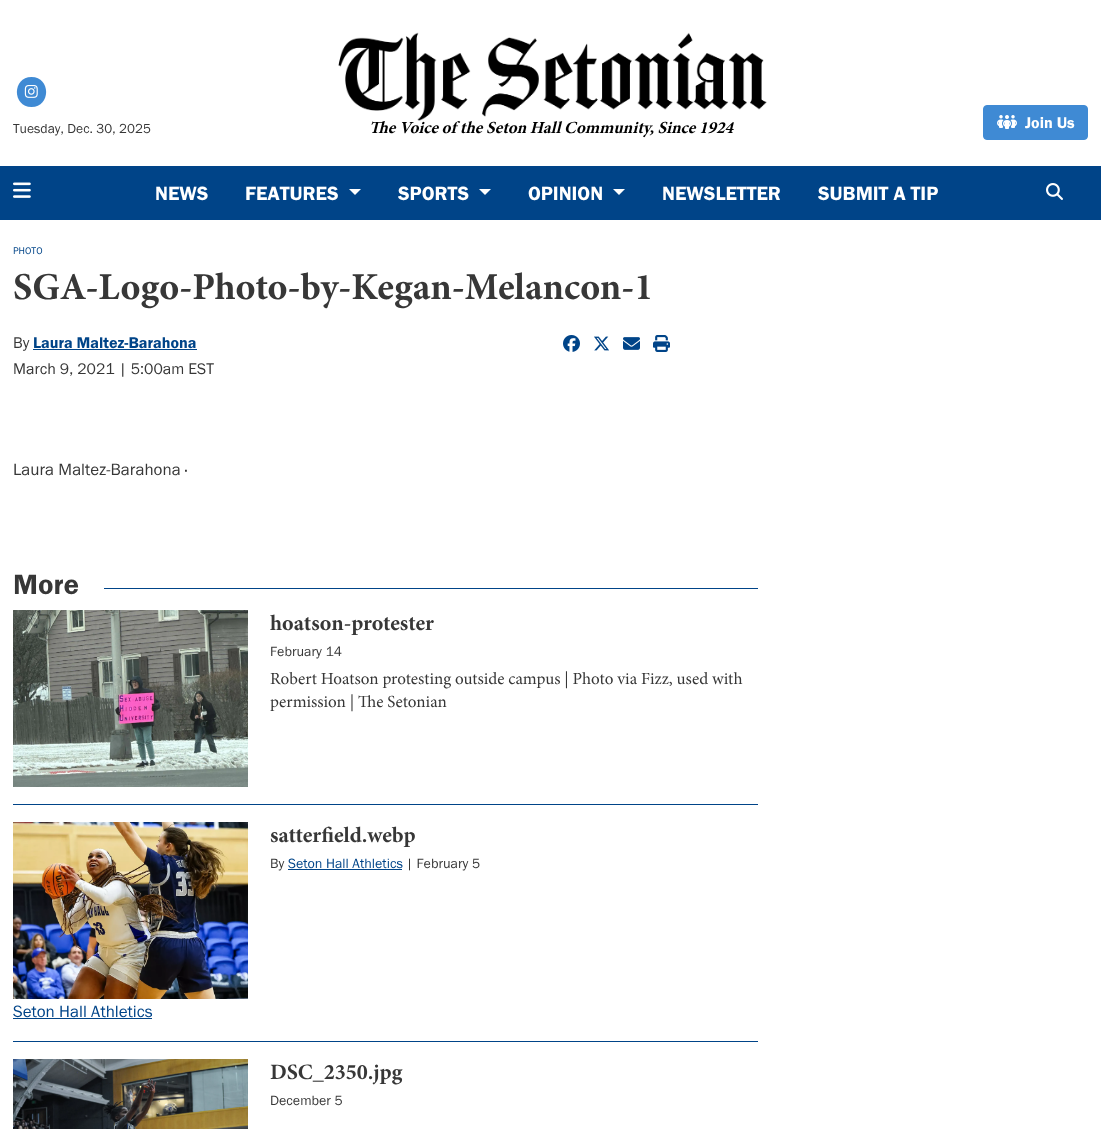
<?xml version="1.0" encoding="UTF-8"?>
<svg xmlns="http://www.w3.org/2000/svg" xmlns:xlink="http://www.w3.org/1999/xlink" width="1101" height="1129">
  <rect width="100%" height="100%" fill="#ffffff" />
  <path d="M 31.5 107 c 19.5 0 19.5 -30 0 -30 c -19.5 0 -19.5 30 0 30 z" fill="#3f8ad4" />
  <image x="24" y="85" width="14" height="13" xlink:href="image1.png" />
  <image x="338" y="32" width="429" height="89" xlink:href="image2.png" />
  <rect x="983.5" y="105.5" width="104" height="34" rx="3.5" fill="#3f8ad4" stroke="#3f8ad4" />
  <image x="997" y="115" width="20" height="14" xlink:href="image3.png" />
  <rect y="166" width="1101" height="54" fill="#004488" />
  <image x="13" y="182" width="18" height="16" xlink:href="image4.png" />
  <path d="M 349 189 h 12 l -6 6 z" fill="#ffffff" />
  <path d="M 479 189 h 12 l -6 6 z" fill="#ffffff" />
  <path d="M 613 189 h 12 l -6 6 z" fill="#ffffff" />
  <image x="1046" y="183" width="17" height="17" xlink:href="image5.png" />
  <rect x="33" y="349" width="164" height="1" fill="#004488" />
  <image x="563" y="335" width="17" height="17" xlink:href="image6.png" />
  <image x="594" y="336" width="15" height="15" xlink:href="image7.png" />
  <image x="623" y="337" width="17" height="13" xlink:href="image8.png" />
  <image x="653" y="335" width="17" height="17" xlink:href="image9.png" />
  <rect x="104" y="588" width="654" height="1" fill="#004488" />
  <image x="13" y="610" width="235" height="177" xlink:href="image10.png" />
  <rect x="13" y="804" width="745" height="1" fill="#004488" />
  <rect x="288" y="869" width="114" height="1" fill="#004488" />
  <image x="13" y="822" width="235" height="177" xlink:href="image11.png" />
  <rect x="13" y="1018" width="139" height="1" fill="#004488" />
  <rect x="13" y="1041" width="745" height="1" fill="#004488" />
  <image x="13" y="1059" width="235" height="70" xlink:href="image12.png" />
  <text x="13" y="133" style="font-family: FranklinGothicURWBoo; font-size: 13.6px; fill: #373737">Tuesday, Dec. 30, 2025</text>
  <text x="369" y="133" style="font-family: Minion; font-size: 17px; font-weight: bold; font-style: italic; fill: #000000">The Voice of the Seton Hall Community, Since 1924</text>
  <text x="1025" y="128" style="font-family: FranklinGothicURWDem; font-size: 16px; fill: #ffffff">Join Us</text>
  <text x="155" y="200" style="font-family: FranklinGothicURWDem; font-size: 20px; fill: #ffffff">NEWS</text>
  <text x="245" y="200" style="font-family: FranklinGothicURWDem; font-size: 20px; fill: #ffffff">FEATURES</text>
  <text x="398" y="200" style="font-family: FranklinGothicURWDem; font-size: 20px; fill: #ffffff">SPORTS</text>
  <text x="528" y="200" style="font-family: FranklinGothicURWDem; font-size: 20px; fill: #ffffff">OPINION</text>
  <text x="662" y="200" style="font-family: FranklinGothicURWDem; font-size: 20px; fill: #ffffff">NEWSLETTER</text>
  <text x="818" y="200" style="font-family: FranklinGothicURWDem; font-size: 20px; fill: #ffffff">SUBMIT A TIP</text>
  <text x="13" y="254" style="font-family: FranklinGothicURWBoo; font-size: 10px; fill: #004488">PHOTO</text>
  <text x="13" y="299" style="font-family: Minion; font-size: 38px; font-weight: bold; fill: #373737">SGA-Logo-Photo-by-Kegan-Melancon-1</text>
  <text x="13" y="348" style="font-family: FranklinGothicURWBoo; font-size: 16px; fill: #373737">By</text>
  <text x="33" y="348" style="font-family: FranklinGothicURWDem; font-size: 16px; fill: #004488">Laura Maltez-Barahona</text>
  <text x="13" y="374" style="font-family: FranklinGothicURWBoo; font-size: 16px; fill: #373737">March 9, 2021 | 5:00am EST</text>
  <text x="13" y="475" style="font-family: FranklinGothicURWBoo; font-size: 17px; fill: #373737">Laura Maltez-Barahona ·</text>
  <text x="13" y="594" style="font-family: FranklinGothicURWDem; font-size: 29px; fill: #373737">More</text>
  <text x="270" y="630" style="font-family: Minion; font-size: 22px; font-weight: bold; fill: #373737">hoatson-protester</text>
  <text x="270" y="656" style="font-family: FranklinGothicURWBoo; font-size: 14px; fill: #373737">February 14</text>
  <text x="270" y="684" style="font-family: Minion; font-size: 17px; fill: #373737">Robert Hoatson protesting outside campus | Photo via Fizz, used with</text>
  <text x="270" y="707" style="font-family: Minion; font-size: 17px; fill: #373737">permission | The Setonian</text>
  <text x="270" y="842" style="font-family: Minion; font-size: 22px; font-weight: bold; fill: #373737">satterfield.webp</text>
  <text x="270" y="868" style="font-family: FranklinGothicURWBoo; font-size: 14px; fill: #373737">By</text>
  <text x="288" y="868" style="font-family: FranklinGothicURWBoo; font-size: 14px; fill: #004488">Seton Hall Athletics</text>
  <text x="406" y="868" style="font-family: FranklinGothicURWBoo; font-size: 14px; fill: #373737">| February 5</text>
  <text x="13" y="1017" style="font-family: FranklinGothicURWBoo; font-size: 17px; fill: #004488">Seton Hall Athletics</text>
  <text x="270" y="1079" style="font-family: Minion; font-size: 22px; font-weight: bold; fill: #373737">DSC_2350.jpg</text>
  <text x="270" y="1105" style="font-family: FranklinGothicURWBoo; font-size: 14px; fill: #373737">December 5</text>
</svg>
